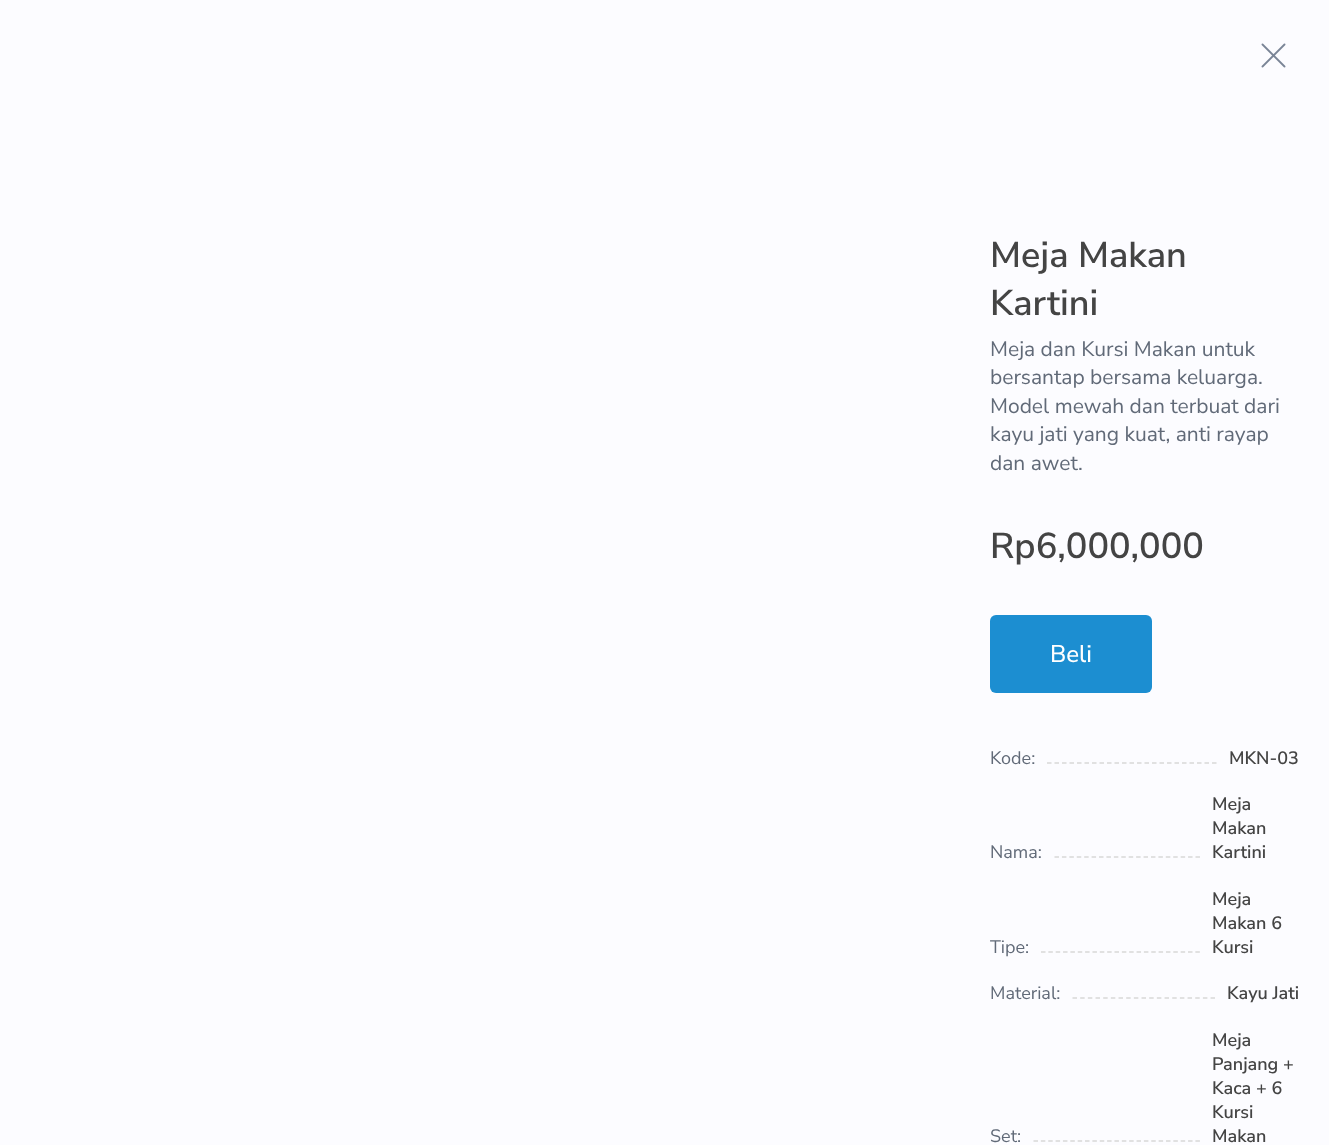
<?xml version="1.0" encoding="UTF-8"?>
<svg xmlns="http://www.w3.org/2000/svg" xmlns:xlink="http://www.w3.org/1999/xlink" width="1329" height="1145">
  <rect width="100%" height="100%" fill="#fcfcff" />
  <image x="1261" y="43" width="25" height="25" xlink:href="image1.png" />
  <rect x="990" y="615" width="162" height="78" rx="6" fill="#1c8ed1" />
  <path d="M 1047 763 h 169.5" fill="none" stroke="#d8d8d8" stroke-width="1.5" stroke-dasharray="4.5 3" />
  <path d="M 1054.5 857 h 145.5" fill="none" stroke="#d8d8d8" stroke-width="1.5" stroke-dasharray="4.5 2.92" />
  <path d="M 1041 952 h 159" fill="none" stroke="#d8d8d8" stroke-width="1.5" stroke-dasharray="4.5 2.85" />
  <path d="M 1072.5 998 h 142.5" fill="none" stroke="#d8d8d8" stroke-width="1.5" stroke-dasharray="4.5 3.17" />
  <path d="M 1033.5 1141 h 166.5" fill="none" stroke="#d8d8d8" stroke-width="1.5" stroke-dasharray="4.5 2.86" />
  <text x="990" y="267" style="font-family: Nunito Sans; font-size: 36px; font-weight: 600; fill: #444444">Meja Makan</text>
  <text x="990" y="315" style="font-family: Nunito Sans; font-size: 36px; font-weight: 600; fill: #444444">Kartini</text>
  <text x="990" y="356" style="font-family: Nunito Sans; font-size: 21px; fill: #616a78">Meja dan Kursi Makan untuk</text>
  <text x="990" y="384" style="font-family: Nunito Sans; font-size: 21px; fill: #616a78">bersantap bersama keluarga.</text>
  <text x="990" y="413" style="font-family: Nunito Sans; font-size: 21px; fill: #616a78">Model mewah dan terbuat dari</text>
  <text x="990" y="441" style="font-family: Nunito Sans; font-size: 21px; fill: #616a78">kayu jati yang kuat, anti rayap</text>
  <text x="990" y="470" style="font-family: Nunito Sans; font-size: 21px; fill: #616a78">dan awet.</text>
  <text x="990" y="558" style="font-family: Nunito Sans; font-size: 36px; font-weight: 600; fill: #444444">Rp6,000,000</text>
  <text x="1050" y="662" style="font-family: Nunito Sans; font-size: 24px; font-weight: 500; fill: #ffffff">Beli</text>
  <text x="990" y="764" style="font-family: Nunito Sans; font-size: 18px; fill: #616a78">Kode:</text>
  <text x="1229" y="764" style="font-family: Nunito Sans; font-size: 18px; font-weight: 600; fill: #444444">MKN-03</text>
  <text x="990" y="858" style="font-family: Nunito Sans; font-size: 18px; fill: #616a78">Nama:</text>
  <text x="1212" y="810" style="font-family: Nunito Sans; font-size: 18px; font-weight: 600; fill: #444444">Meja</text>
  <text x="1212" y="834" style="font-family: Nunito Sans; font-size: 18px; font-weight: 600; fill: #444444">Makan</text>
  <text x="1212" y="858" style="font-family: Nunito Sans; font-size: 18px; font-weight: 600; fill: #444444">Kartini</text>
  <text x="990" y="953" style="font-family: Nunito Sans; font-size: 18px; fill: #616a78">Tipe:</text>
  <text x="1212" y="905" style="font-family: Nunito Sans; font-size: 18px; font-weight: 600; fill: #444444">Meja</text>
  <text x="1212" y="929" style="font-family: Nunito Sans; font-size: 18px; font-weight: 600; fill: #444444">Makan 6</text>
  <text x="1212" y="953" style="font-family: Nunito Sans; font-size: 18px; font-weight: 600; fill: #444444">Kursi</text>
  <text x="990" y="999" style="font-family: Nunito Sans; font-size: 18px; fill: #616a78">Material:</text>
  <text x="1227" y="999" style="font-family: Nunito Sans; font-size: 18px; font-weight: 600; fill: #444444">Kayu Jati</text>
  <text x="990" y="1142" style="font-family: Nunito Sans; font-size: 18px; fill: #616a78">Set:</text>
  <text x="1212" y="1046" style="font-family: Nunito Sans; font-size: 18px; font-weight: 600; fill: #444444">Meja</text>
  <text x="1212" y="1070" style="font-family: Nunito Sans; font-size: 18px; font-weight: 600; fill: #444444">Panjang +</text>
  <text x="1212" y="1094" style="font-family: Nunito Sans; font-size: 18px; font-weight: 600; fill: #444444">Kaca + 6</text>
  <text x="1212" y="1118" style="font-family: Nunito Sans; font-size: 18px; font-weight: 600; fill: #444444">Kursi</text>
  <text x="1212" y="1142" style="font-family: Nunito Sans; font-size: 18px; font-weight: 600; fill: #444444">Makan</text>
</svg>
